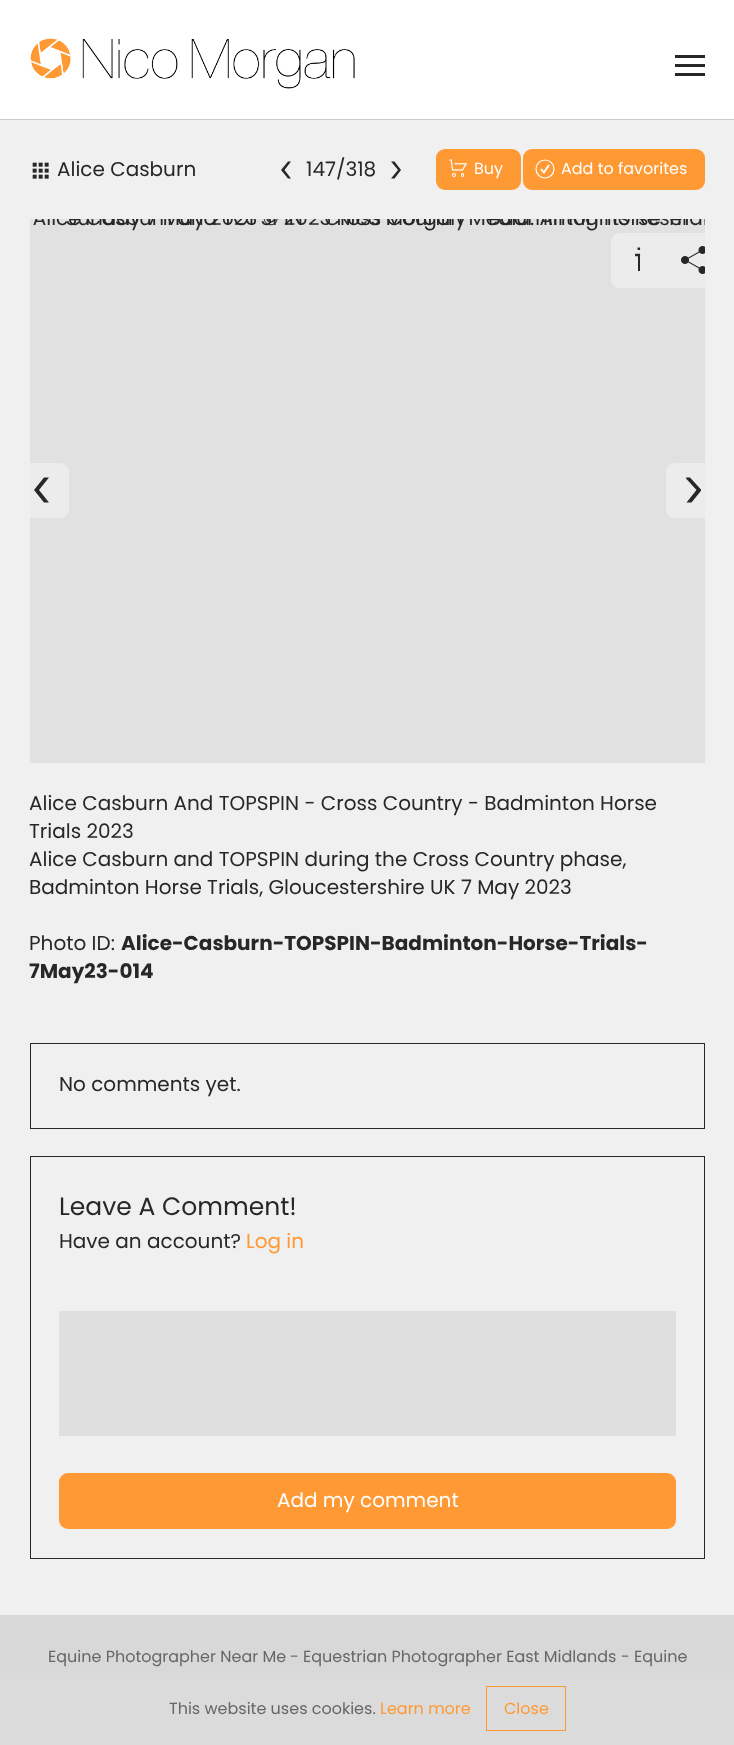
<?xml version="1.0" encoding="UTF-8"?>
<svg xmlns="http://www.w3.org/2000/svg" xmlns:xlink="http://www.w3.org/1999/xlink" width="734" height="1745">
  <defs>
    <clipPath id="clip1"><rect x="686" y="475" width="15" height="30" /></clipPath>
  </defs>
  <rect width="100%" height="100%" fill="#f0f0f0" />
  <rect width="734" height="119" fill="#ffffff" />
  <rect y="119" width="734" height="1" fill="#cbcbcb" />
  <image x="30" y="38" width="325" height="51" xlink:href="image1.png" />
  <rect x="675" y="64" width="30" height="3" fill="#272727" />
  <rect x="675" y="55" width="30" height="3" fill="#272727" />
  <rect x="675" y="73" width="30" height="3" fill="#272727" />
  <image x="32" y="162" width="17" height="17" xlink:href="image2.png" />
  <path d="M 281 170 l 7 8.5 h 3 l -6.5 -8.5 l 6.5 -8.5 h -3 z" fill="#272727" />
  <path d="M 398 170 l -7 8.5 h 3.5 l 6.5 -8.5 l -6.5 -8.5 h -3.5 z" fill="#272727" />
  <rect x="436" y="149" width="85" height="41" rx="9" fill="#ff9933" />
  <image x="449" y="159" width="18" height="18" xlink:href="image3.png" />
  <rect x="523" y="149" width="182" height="41" rx="9" fill="#ff9933" />
  <path d="M 541 169 l 3 3.5 l 5 -7.5" fill="none" stroke="#ffffff" stroke-width="1.9" />
  <circle cx="545" cy="169" r="9" fill="none" stroke="#ffffff" stroke-width="1.2" />
  <rect x="30" y="219" width="675" height="544" fill="#e1e1e1" />
  <image x="33" y="219" width="672" height="12" xlink:href="image4.png" />
  <path d="M 620 233 h 85 v 55 h -85 c -5 0 -9 -4 -9 -9 v -37 c 0 -5 4 -9 9 -9 z" fill="#ececec" />
  <image x="635" y="247" width="6" height="24" xlink:href="image5.png" />
  <image x="681" y="246" width="24" height="28" xlink:href="image6.png" />
  <path d="M 30 463 h 30 c 5 0 9 4 9 9 v 37 c 0 5 -4 9 -9 9 h -30 z" fill="#ececec" />
  <path d="M 34 490 l 10 12.5 h 5 l -10 -12.5 l 10 -12.5 h -5 z" fill="#272727" />
  <path d="M 675 463 h 30 v 55 h -30 c -5 0 -9 -4 -9 -9 v -37 c 0 -5 4 -9 9 -9 z" fill="#ececec" />
  <g clip-path="url(#clip1)">
    <path d="M 696.5 490 l -10 12.5 h 5 l 10 -12.5 l -11.5 -12.5 h -5 z" fill="#272727" />
  </g>
  <rect x="30.5" y="1043.5" width="674" height="85" fill="none" stroke="#272727" />
  <rect x="30.5" y="1156.5" width="674" height="402" fill="none" stroke="#272727" />
  <rect x="59" y="1311" width="617" height="125" fill="#dfdfdf" />
  <rect x="59" y="1473" width="617" height="56" rx="9" fill="#ff9933" />
  <rect y="1615" width="734" height="58" fill="#d8d8d8" />
  <rect y="1673" width="734" height="72" fill="#dbdbdb" />
  <rect x="486.5" y="1686.5" width="79" height="44" fill="none" stroke="#ff9933" />
  <text x="57" y="176" style="font-family: Poppins; font-size: 20px; fill: #272727">Alice Casburn</text>
  <text x="306" y="176" style="font-family: Poppins; font-size: 20px; fill: #272727">147/318</text>
  <text x="474" y="174" style="font-family: Poppins; font-size: 16px; fill: #ffffff">Buy</text>
  <text x="561" y="174" style="font-family: Poppins; font-size: 16px; fill: #ffffff">Add to favorites</text>
  <text x="29" y="810" style="font-family: Poppins; font-size: 20px; fill: #272727">Alice Casburn And TOPSPIN - Cross Country - Badminton Horse</text>
  <text x="29" y="838" style="font-family: Poppins; font-size: 20px; fill: #272727">Trials 2023</text>
  <text x="29" y="866" style="font-family: Poppins; font-size: 20px; fill: #272727">Alice Casburn and TOPSPIN during the Cross Country phase,</text>
  <text x="29" y="894" style="font-family: Poppins; font-size: 20px; fill: #272727">Badminton Horse Trials, Gloucestershire UK 7 May 2023</text>
  <text x="29" y="950" style="font-family: Poppins; font-size: 20px; fill: #272727">Photo ID:</text>
  <text x="121" y="950" style="font-family: Poppins; font-size: 20px; font-weight: bold; fill: #272727">Alice-Casburn-TOPSPIN-Badminton-Horse-Trials-</text>
  <text x="29" y="978" style="font-family: Poppins; font-size: 20px; font-weight: bold; fill: #272727">7May23-014</text>
  <text x="59" y="1091" style="font-family: Poppins; font-size: 20px; fill: #272727">No comments yet.</text>
  <text x="59" y="1215" style="font-family: Poppins; font-size: 25px; fill: #272727">Leave A Comment!</text>
  <text x="59" y="1248" style="font-family: Poppins; font-size: 20px; fill: #272727">Have an account?</text>
  <text x="246" y="1248" style="font-family: Poppins; font-size: 20px; fill: #ff9933">Log in</text>
  <text x="277" y="1507" style="font-family: Poppins; font-size: 20px; fill: #ffffff">Add my comment</text>
  <text x="48" y="1662" style="font-family: Poppins; font-size: 16px; fill: #666666">Equine Photographer Near Me</text>
  <text x="290" y="1662" style="font-family: Poppins; font-size: 16px; fill: #6c6c6c">-</text>
  <text x="303" y="1662" style="font-family: Poppins; font-size: 16px; fill: #666666">Equestrian Photographer East Midlands</text>
  <text x="621" y="1662" style="font-family: Poppins; font-size: 16px; fill: #6c6c6c">-</text>
  <text x="634" y="1662" style="font-family: Poppins; font-size: 16px; fill: #666666">Equine</text>
  <text x="169" y="1714" style="font-family: Poppins; font-size: 16px; fill: #666666">This website uses cookies.</text>
  <text x="380" y="1714" style="font-family: Poppins; font-size: 16px; fill: #ff9933">Learn more</text>
  <text x="504" y="1714" style="font-family: Poppins; font-size: 16px; fill: #ff9933">Close</text>
</svg>
